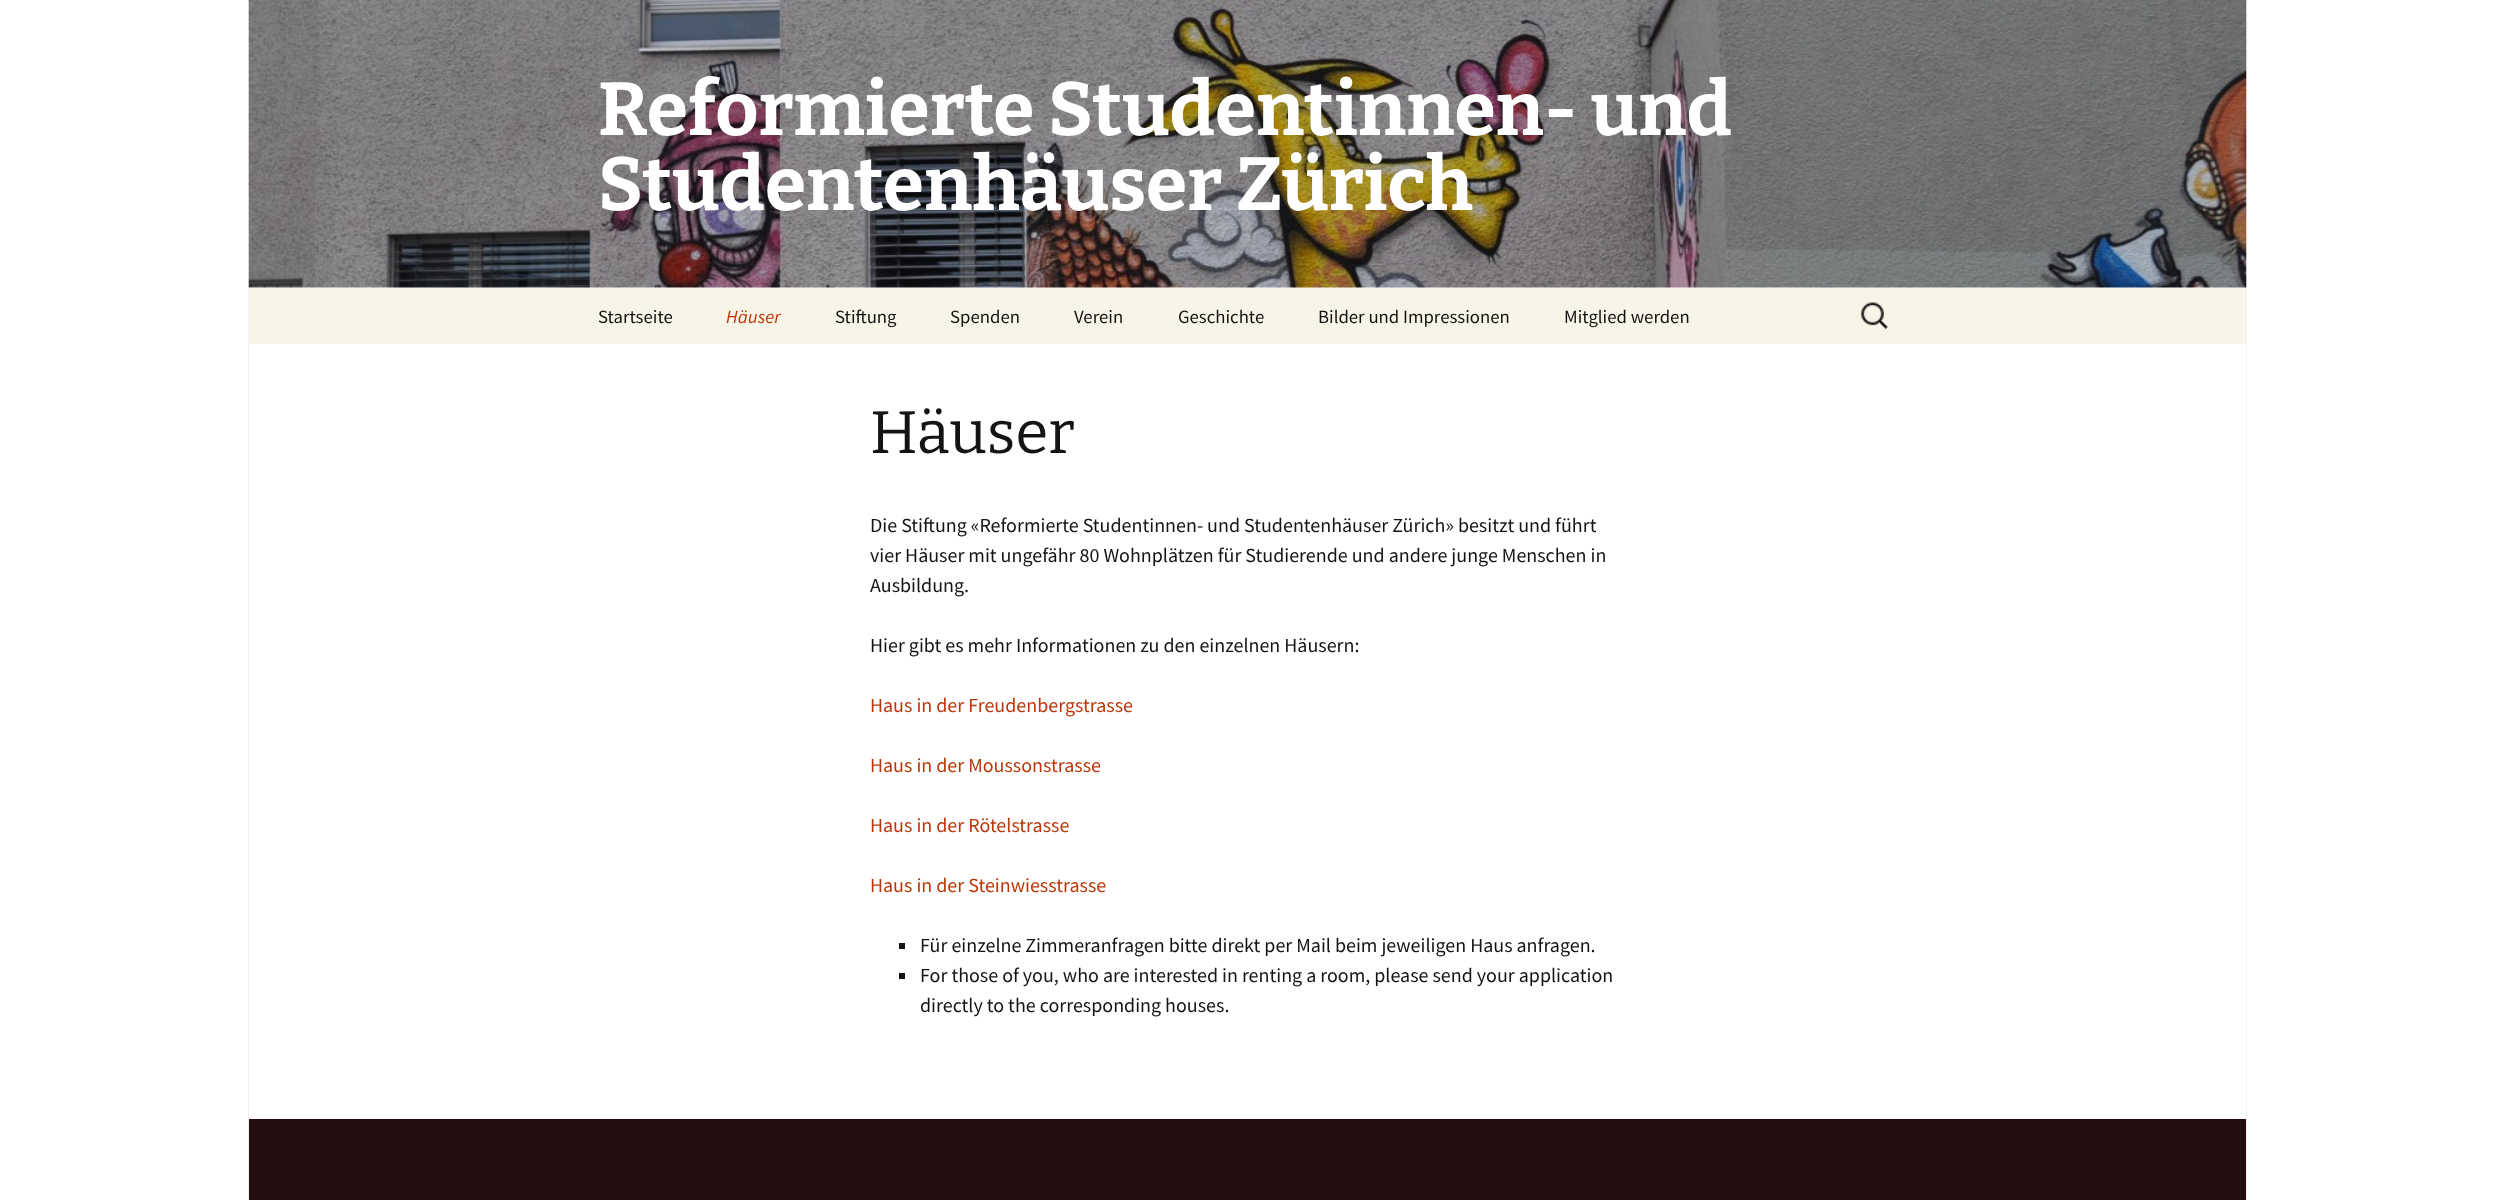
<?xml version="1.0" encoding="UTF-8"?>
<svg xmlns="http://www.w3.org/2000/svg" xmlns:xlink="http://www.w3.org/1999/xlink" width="2495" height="1200">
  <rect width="100%" height="100%" fill="#ffffff" />
  <rect x="2246" width="1" height="1200" fill="#f2f2f2" />
  <rect x="248" width="1" height="1200" fill="#f2f2f2" />
  <image x="248" y="0" width="1999" height="288" xlink:href="image1.png" />
  <rect x="249" y="288" width="1997" height="56" fill="#f7f5e7" />
  <image x="1861" y="302" width="27" height="27" xlink:href="image2.png" />
  <rect x="899" y="943" width="6" height="6" fill="#141412" />
  <rect x="899" y="973" width="6" height="6" fill="#141412" />
  <rect x="249" y="1119" width="1997" height="81" fill="#220e10" />
  <text x="598" y="135" style="font-family: Bitter; font-size: 75px; font-weight: bold; fill: #ffffff">Reformierte Studentinnen- und</text>
  <text x="598" y="210" style="font-family: Bitter; font-size: 75px; font-weight: bold; fill: #ffffff">Studentenhäuser Zürich</text>
  <text x="598" y="323" style="font-family: Source Sans Pro; font-size: 18.75px; fill: #141412">Startseite</text>
  <text x="726" y="323" style="font-family: Source Sans Pro; font-size: 18.75px; font-style: italic; fill: #bc360a">Häuser</text>
  <text x="835" y="323" style="font-family: Source Sans Pro; font-size: 18.75px; fill: #141412">Stiftung</text>
  <text x="950" y="323" style="font-family: Source Sans Pro; font-size: 18.75px; fill: #141412">Spenden</text>
  <text x="1074" y="323" style="font-family: Source Sans Pro; font-size: 18.75px; fill: #141412">Verein</text>
  <text x="1178" y="323" style="font-family: Source Sans Pro; font-size: 18.75px; fill: #141412">Geschichte</text>
  <text x="1318" y="323" style="font-family: Source Sans Pro; font-size: 18.75px; fill: #141412">Bilder und Impressionen</text>
  <text x="1564" y="323" style="font-family: Source Sans Pro; font-size: 18.75px; fill: #141412">Mitglied werden</text>
  <text x="870" y="453" style="font-family: Bitter; font-size: 60px; fill: #141412">Häuser</text>
  <text x="870" y="532" style="font-family: Source Sans Pro; font-size: 20px; fill: #141412">Die Stiftung «Reformierte Studentinnen- und Studentenhäuser Zürich» besitzt und führt</text>
  <text x="870" y="562" style="font-family: Source Sans Pro; font-size: 20px; fill: #141412">vier Häuser mit ungefähr 80 Wohnplätzen für Studierende und andere junge Menschen in</text>
  <text x="870" y="592" style="font-family: Source Sans Pro; font-size: 20px; fill: #141412">Ausbildung.</text>
  <text x="870" y="652" style="font-family: Source Sans Pro; font-size: 20px; fill: #141412">Hier gibt es mehr Informationen zu den einzelnen Häusern:</text>
  <text x="870" y="712" style="font-family: Source Sans Pro; font-size: 20px; fill: #bc360a">Haus in der Freudenbergstrasse</text>
  <text x="870" y="772" style="font-family: Source Sans Pro; font-size: 20px; fill: #bc360a">Haus in der Moussonstrasse</text>
  <text x="870" y="832" style="font-family: Source Sans Pro; font-size: 20px; fill: #bc360a">Haus in der Rötelstrasse</text>
  <text x="870" y="892" style="font-family: Source Sans Pro; font-size: 20px; fill: #bc360a">Haus in der Steinwiesstrasse</text>
  <text x="920" y="952" style="font-family: Source Sans Pro; font-size: 20px; fill: #141412">Für einzelne Zimmeranfragen bitte direkt per Mail beim jeweiligen Haus anfragen.</text>
  <text x="920" y="982" style="font-family: Source Sans Pro; font-size: 20px; fill: #141412">For those of you, who are interested in renting a room, please send your application</text>
  <text x="920" y="1012" style="font-family: Source Sans Pro; font-size: 20px; fill: #141412">directly to the corresponding houses.</text>
</svg>
